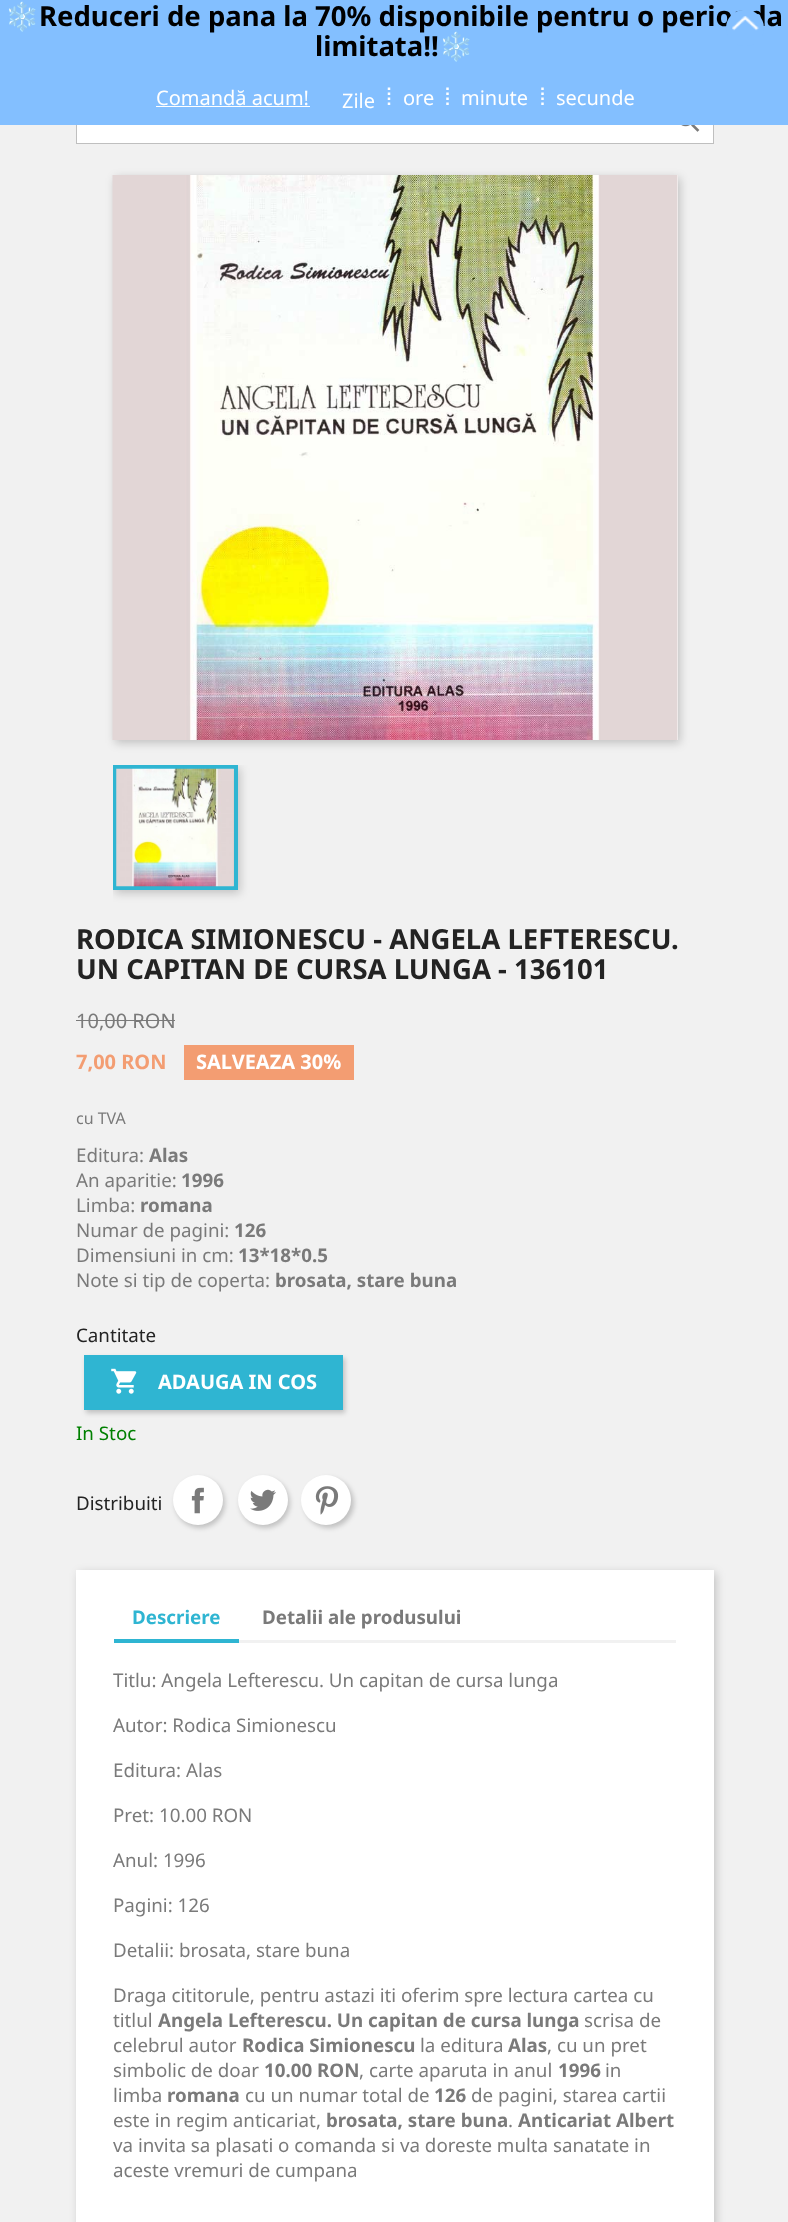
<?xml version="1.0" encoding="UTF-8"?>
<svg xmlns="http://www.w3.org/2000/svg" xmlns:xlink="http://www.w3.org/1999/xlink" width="788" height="2222">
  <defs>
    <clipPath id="clip1"><rect x="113" y="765" width="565" height="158" /></clipPath>
  </defs>
  <rect width="100%" height="100%" fill="#f1f1f1" />
  <rect x="77" y="125" width="636" height="18" fill="#ffffff" />
  <rect x="76.5" y="91.5" width="637" height="52" fill="none" stroke="#bfbfbf" />
  <rect width="788" height="125" fill="#83bfff" />
  <rect x="156" y="106" width="154" height="1" fill="#ffffff" />
  <path d="M 389 87.5 v 20" fill="none" stroke="#ffffff" stroke-width="2.5" stroke-dasharray="2.5 2.5" />
  <path d="M 447.5 87.5 v 20" fill="none" stroke="#ffffff" stroke-width="2.5" stroke-dasharray="2.5 2.5" />
  <path d="M 542.5 87.5 v 20" fill="none" stroke="#ffffff" stroke-width="2.5" stroke-dasharray="2.5 2.5" />
  <image x="681" y="125" width="19" height="7" xlink:href="image2.png" />
  <rect x="115" y="178" width="565" height="565" fill="#000000" fill-opacity="0.2" filter="blur(5px)" />
  <rect x="677" y="175" width="1" height="565" fill="#ffffff" />
  <image x="112" y="175" width="566" height="565" xlink:href="image3.png" />
  <g clip-path="url(#clip1)">
    <rect x="115" y="768" width="125" height="125" fill="#000000" fill-opacity="0.2" filter="blur(5px)" />
  </g>
  <rect x="115" y="767" width="121" height="121" fill="none" stroke="#2fb5d2" stroke-width="4" />
  <image x="116" y="768" width="118" height="119" xlink:href="image4.png" />
  <rect x="76" y="1020" width="99" height="1" fill="#7a7a7a" />
  <rect x="184" y="1045" width="170" height="35" fill="#f39d72" />
  <rect x="86" y="1358" width="259" height="55" fill="#000000" fill-opacity="0.2" filter="blur(2.5px)" />
  <rect x="84" y="1355" width="259" height="55" fill="#2fb5d2" />
  <image x="111" y="1368" width="26" height="26" xlink:href="image5.png" />
  <rect x="175" y="1478" width="50" height="50" rx="25" fill="#000000" fill-opacity="0.2" filter="blur(2.5px)" />
  <circle cx="198" cy="1500" r="25" fill="#ffffff" />
  <image x="191" y="1487" width="13" height="27" xlink:href="image6.png" />
  <rect x="240" y="1478" width="50" height="50" rx="25" fill="#000000" fill-opacity="0.2" filter="blur(2.5px)" />
  <circle cx="263" cy="1500" r="25" fill="#ffffff" />
  <image x="250" y="1489" width="26" height="22" xlink:href="image7.png" />
  <rect x="304" y="1478" width="50" height="50" rx="25" fill="#000000" fill-opacity="0.2" filter="blur(2.5px)" />
  <circle cx="326" cy="1500" r="25" fill="#ffffff" />
  <image x="315" y="1486" width="24" height="29" xlink:href="image8.png" />
  <rect x="79" y="1573" width="637" height="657" fill="#000000" fill-opacity="0.2" filter="blur(5px)" />
  <rect x="76" y="1570" width="638" height="652" fill="#ffffff" />
  <rect x="239" y="1640" width="437" height="3" fill="#f1f1f1" />
  <rect x="114" y="1639" width="125" height="4" fill="#2fb5d2" />
  <text x="5" y="26" style="font-family: Noto Color Emoji; font-size: 27.5px; font-weight: bold; fill: #000000">❄️</text>
  <text x="39" y="26" style="font-family: Noto Sans; font-size: 27.5px; font-weight: bold; fill: #000000">Reduceri de pana la 70% disponibile pentru o perioada</text>
  <text x="315" y="56" style="font-family: Noto Sans; font-size: 27.5px; font-weight: bold; fill: #000000">limitata!!</text>
  <text x="439" y="56" style="font-family: Noto Color Emoji; font-size: 27.5px; font-weight: bold; fill: #000000">❄️</text>
  <text x="156" y="105" style="font-family: Noto Sans; font-size: 20px; fill: #ffffff">Comandă acum!</text>
  <text x="342" y="108" style="font-family: Noto Sans; font-size: 20px; fill: #ffffff">Zile</text>
  <text x="403" y="105" style="font-family: Noto Sans; font-size: 20px; fill: #ffffff">ore</text>
  <text x="461" y="105" style="font-family: Noto Sans; font-size: 20px; fill: #ffffff">minute</text>
  <text x="556" y="105" style="font-family: Noto Sans; font-size: 20px; fill: #ffffff">secunde</text>
  <rect x="726" y="10" width="38" height="36" rx="18" fill="#83bfff" />
  <image x="732" y="16" width="27" height="15" xlink:href="image1.png" />
  <text x="76" y="949" style="font-family: Noto Sans; font-size: 27.5px; font-weight: bold; fill: #232323">RODICA SIMIONESCU - ANGELA LEFTERESCU.</text>
  <text x="76" y="979" style="font-family: Noto Sans; font-size: 27.5px; font-weight: bold; fill: #232323">UN CAPITAN DE CURSA LUNGA - 136101</text>
  <text x="76" y="1028" style="font-family: Noto Sans; font-size: 20px; fill: #7a7a7a">10,00 RON</text>
  <text x="76" y="1069" style="font-family: Noto Sans; font-size: 20px; font-weight: bold; fill: #f39d72">7,00 RON</text>
  <text x="196" y="1069" style="font-family: Noto Sans; font-size: 20px; font-weight: bold; fill: #ffffff">SALVEAZA 30%</text>
  <text x="76" y="1124" style="font-family: Noto Sans; font-size: 16px; fill: #7a7a7a">cu TVA</text>
  <text x="76" y="1162" style="font-family: Noto Sans; font-size: 18.75px; fill: #7a7a7a">Editura:</text>
  <text x="149" y="1162" style="font-family: Noto Sans; font-size: 18.75px; font-weight: bold; fill: #7a7a7a">Alas</text>
  <text x="76" y="1187" style="font-family: Noto Sans; font-size: 18.75px; fill: #7a7a7a">An aparitie:</text>
  <text x="181" y="1187" style="font-family: Noto Sans; font-size: 18.75px; font-weight: bold; fill: #7a7a7a">1996</text>
  <text x="76" y="1212" style="font-family: Noto Sans; font-size: 18.75px; fill: #7a7a7a">Limba:</text>
  <text x="140" y="1212" style="font-family: Noto Sans; font-size: 18.75px; font-weight: bold; fill: #7a7a7a">romana</text>
  <text x="76" y="1237" style="font-family: Noto Sans; font-size: 18.75px; fill: #7a7a7a">Numar de pagini:</text>
  <text x="234" y="1237" style="font-family: Noto Sans; font-size: 18.75px; font-weight: bold; fill: #7a7a7a">126</text>
  <text x="76" y="1262" style="font-family: Noto Sans; font-size: 18.75px; fill: #7a7a7a">Dimensiuni in cm:</text>
  <text x="238" y="1262" style="font-family: Noto Sans; font-size: 18.75px; font-weight: bold; fill: #7a7a7a">13*18*0.5</text>
  <text x="76" y="1287" style="font-family: Noto Sans; font-size: 18.75px; fill: #7a7a7a">Note si tip de coperta:</text>
  <text x="275" y="1287" style="font-family: Noto Sans; font-size: 18.75px; font-weight: bold; fill: #7a7a7a">brosata, stare buna</text>
  <text x="76" y="1342" style="font-family: Noto Sans; font-size: 18.75px; fill: #232323">Cantitate</text>
  <text x="158" y="1389" style="font-family: Noto Sans; font-size: 20px; font-weight: bold; fill: #ffffff">ADAUGA IN COS</text>
  <text x="76" y="1440" style="font-family: Noto Sans; font-size: 18.75px; fill: #008000">In Stoc</text>
  <text x="76" y="1510" style="font-family: Noto Sans; font-size: 18.75px; fill: #232323">Distribuiti</text>
  <text x="132" y="1624" style="font-family: Noto Sans; font-size: 18.75px; font-weight: bold; fill: #2fb5d2">Descriere</text>
  <text x="262" y="1624" style="font-family: Noto Sans; font-size: 18.75px; font-weight: bold; fill: #7a7a7a">Detalii ale produsului</text>
  <text x="113" y="1687" style="font-family: Noto Sans; font-size: 18.75px; fill: #7a7a7a">Titlu: Angela Lefterescu. Un capitan de cursa lunga</text>
  <text x="113" y="1732" style="font-family: Noto Sans; font-size: 18.75px; fill: #7a7a7a">Autor: Rodica Simionescu</text>
  <text x="113" y="1777" style="font-family: Noto Sans; font-size: 18.75px; fill: #7a7a7a">Editura: Alas</text>
  <text x="113" y="1822" style="font-family: Noto Sans; font-size: 18.75px; fill: #7a7a7a">Pret: 10.00 RON</text>
  <text x="113" y="1867" style="font-family: Noto Sans; font-size: 18.75px; fill: #7a7a7a">Anul: 1996</text>
  <text x="113" y="1912" style="font-family: Noto Sans; font-size: 18.75px; fill: #7a7a7a">Pagini: 126</text>
  <text x="113" y="1957" style="font-family: Noto Sans; font-size: 18.75px; fill: #7a7a7a">Detalii: brosata, stare buna</text>
  <text x="113" y="2002" style="font-family: Noto Sans; font-size: 18.75px; fill: #7a7a7a">Draga cititorule, pentru astazi iti oferim spre lectura cartea cu</text>
  <text x="113" y="2027" style="font-family: Noto Sans; font-size: 18.75px; fill: #7a7a7a">titlul</text>
  <text x="158" y="2027" style="font-family: Noto Sans; font-size: 18.75px; font-weight: bold; fill: #7a7a7a">Angela Lefterescu. Un capitan de cursa lunga</text>
  <text x="584" y="2027" style="font-family: Noto Sans; font-size: 18.75px; fill: #7a7a7a">scrisa de</text>
  <text x="113" y="2052" style="font-family: Noto Sans; font-size: 18.75px; fill: #7a7a7a">celebrul autor</text>
  <text x="242" y="2052" style="font-family: Noto Sans; font-size: 18.75px; font-weight: bold; fill: #7a7a7a">Rodica Simionescu</text>
  <text x="420" y="2052" style="font-family: Noto Sans; font-size: 18.75px; fill: #7a7a7a">la editura</text>
  <text x="508" y="2052" style="font-family: Noto Sans; font-size: 18.75px; font-weight: bold; fill: #7a7a7a">Alas</text>
  <text x="547" y="2052" style="font-family: Noto Sans; font-size: 18.75px; fill: #7a7a7a">, cu un pret</text>
  <text x="113" y="2077" style="font-family: Noto Sans; font-size: 18.75px; fill: #7a7a7a">simbolic de doar</text>
  <text x="264" y="2077" style="font-family: Noto Sans; font-size: 18.75px; font-weight: bold; fill: #7a7a7a">10.00 RON</text>
  <text x="359" y="2077" style="font-family: Noto Sans; font-size: 18.75px; fill: #7a7a7a">, carte aparuta in anul</text>
  <text x="558" y="2077" style="font-family: Noto Sans; font-size: 18.75px; font-weight: bold; fill: #7a7a7a">1996</text>
  <text x="605" y="2077" style="font-family: Noto Sans; font-size: 18.75px; fill: #7a7a7a">in</text>
  <text x="113" y="2102" style="font-family: Noto Sans; font-size: 18.75px; fill: #7a7a7a">limba</text>
  <text x="167" y="2102" style="font-family: Noto Sans; font-size: 18.75px; font-weight: bold; fill: #7a7a7a">romana</text>
  <text x="245" y="2102" style="font-family: Noto Sans; font-size: 18.75px; fill: #7a7a7a">cu un numar total de</text>
  <text x="434" y="2102" style="font-family: Noto Sans; font-size: 18.75px; font-weight: bold; fill: #7a7a7a">126</text>
  <text x="471" y="2102" style="font-family: Noto Sans; font-size: 18.75px; fill: #7a7a7a">de pagini, starea cartii</text>
  <text x="113" y="2127" style="font-family: Noto Sans; font-size: 18.75px; fill: #7a7a7a">este in regim anticariat,</text>
  <text x="326" y="2127" style="font-family: Noto Sans; font-size: 18.75px; font-weight: bold; fill: #7a7a7a">brosata, stare buna</text>
  <text x="508" y="2127" style="font-family: Noto Sans; font-size: 18.75px; fill: #7a7a7a">.</text>
  <text x="518" y="2127" style="font-family: Noto Sans; font-size: 18.75px; font-weight: bold; fill: #7a7a7a">Anticariat Albert</text>
  <text x="113" y="2152" style="font-family: Noto Sans; font-size: 18.75px; fill: #7a7a7a">va invita sa plasati o comanda si va doreste multa sanatate in</text>
  <text x="113" y="2177" style="font-family: Noto Sans; font-size: 18.75px; fill: #7a7a7a">aceste vremuri de cumpana</text>
</svg>
